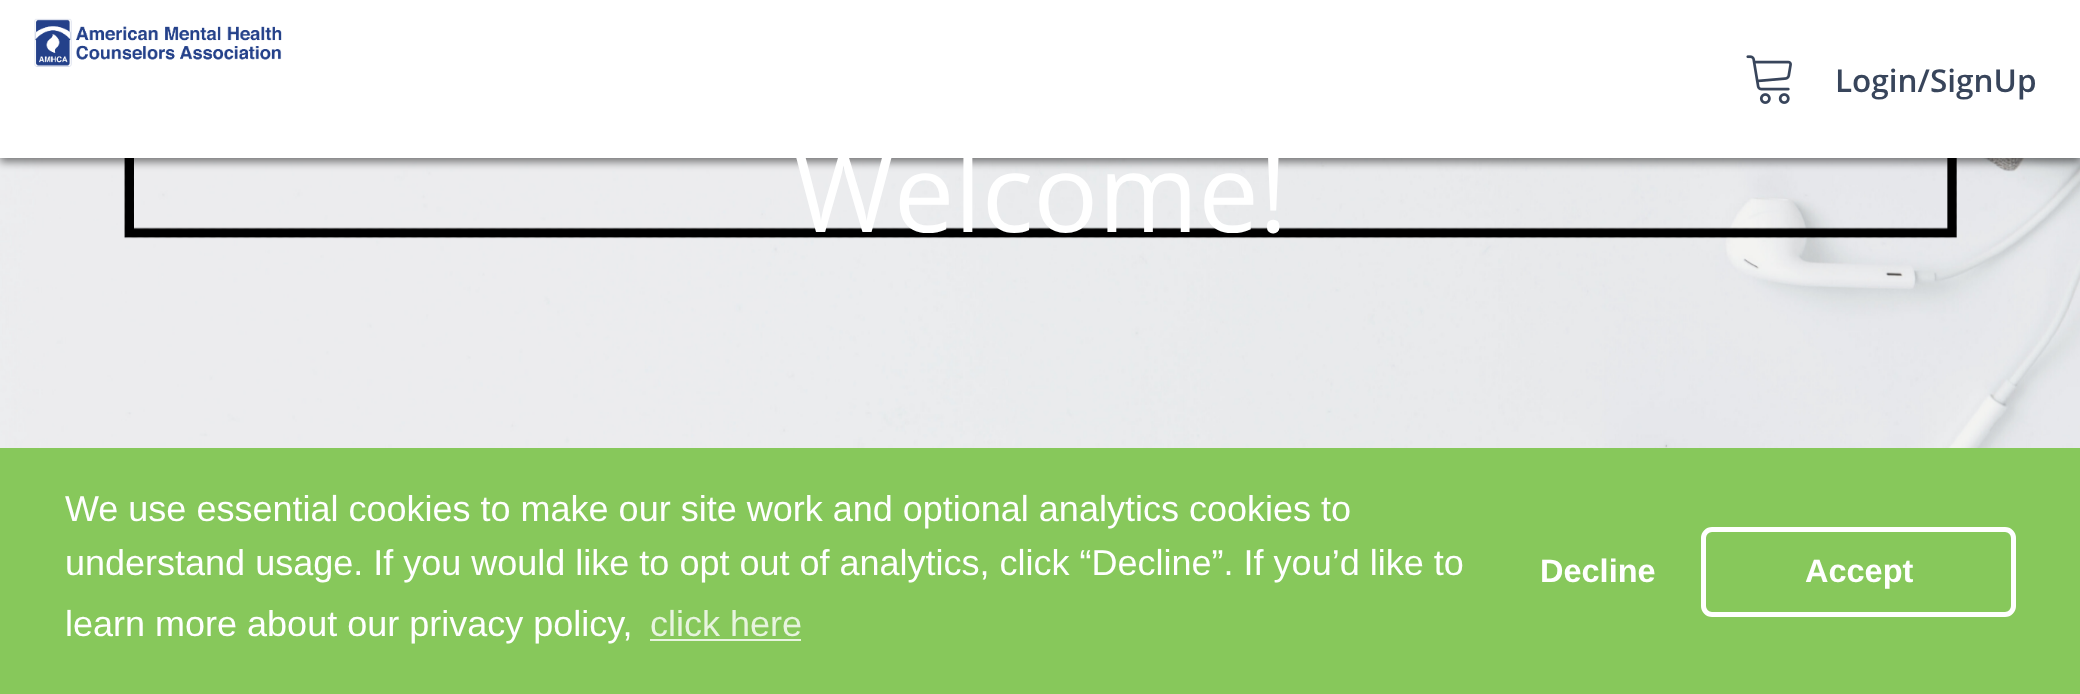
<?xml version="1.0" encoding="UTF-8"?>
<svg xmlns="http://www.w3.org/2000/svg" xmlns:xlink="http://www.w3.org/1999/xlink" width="2080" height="694">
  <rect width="100%" height="100%" fill="#ffffff" />
  <image x="0" y="158" width="2080" height="290" xlink:href="image3.png" />
  <rect y="5" width="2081" height="157" fill="#000000" fill-opacity="0.5" filter="blur(4.5px)" />
  <rect width="2080" height="158" fill="#ffffff" />
  <image x="34" y="18" width="248" height="49" xlink:href="image1.png" />
  <image x="1746" y="55" width="46" height="49" xlink:href="image2.png" />
  <rect y="448" width="2080" height="246" fill="#87c85b" />
  <rect x="650" y="639" width="151" height="2" fill="#e7f4de" />
  <rect x="1703.5" y="529.5" width="310" height="85" rx="8.5" fill="none" stroke="#ffffff" stroke-width="5" />
  <text x="1835" y="92" style="font-family: Open Sans; font-size: 31.5px; font-weight: 600; fill: #38455b">Login/SignUp</text>
  <text x="794" y="232" style="font-family: Open Sans; font-size: 108px; fill: #ffffff">Welcome!</text>
  <text x="65" y="521" style="font-family: Liberation Sans; font-size: 36px; fill: #ffffff">We use essential cookies to make our site work and optional analytics cookies to</text>
  <text x="65" y="575" style="font-family: Liberation Sans; font-size: 36px; fill: #ffffff">understand usage. If you would like to opt out of analytics, click “Decline”. If you’d like to</text>
  <text x="65" y="636" style="font-family: Liberation Sans; font-size: 36px; fill: #ffffff">learn more about our privacy policy,</text>
  <text x="650" y="636" style="font-family: Liberation Sans; font-size: 36px; fill: #e7f4de">click here</text>
  <text x="1540" y="582" style="font-family: Liberation Sans; font-size: 32.5px; font-weight: bold; fill: #ffffff">Decline</text>
  <text x="1805" y="582" style="font-family: Liberation Sans; font-size: 32.5px; font-weight: bold; fill: #ffffff">Accept</text>
</svg>
